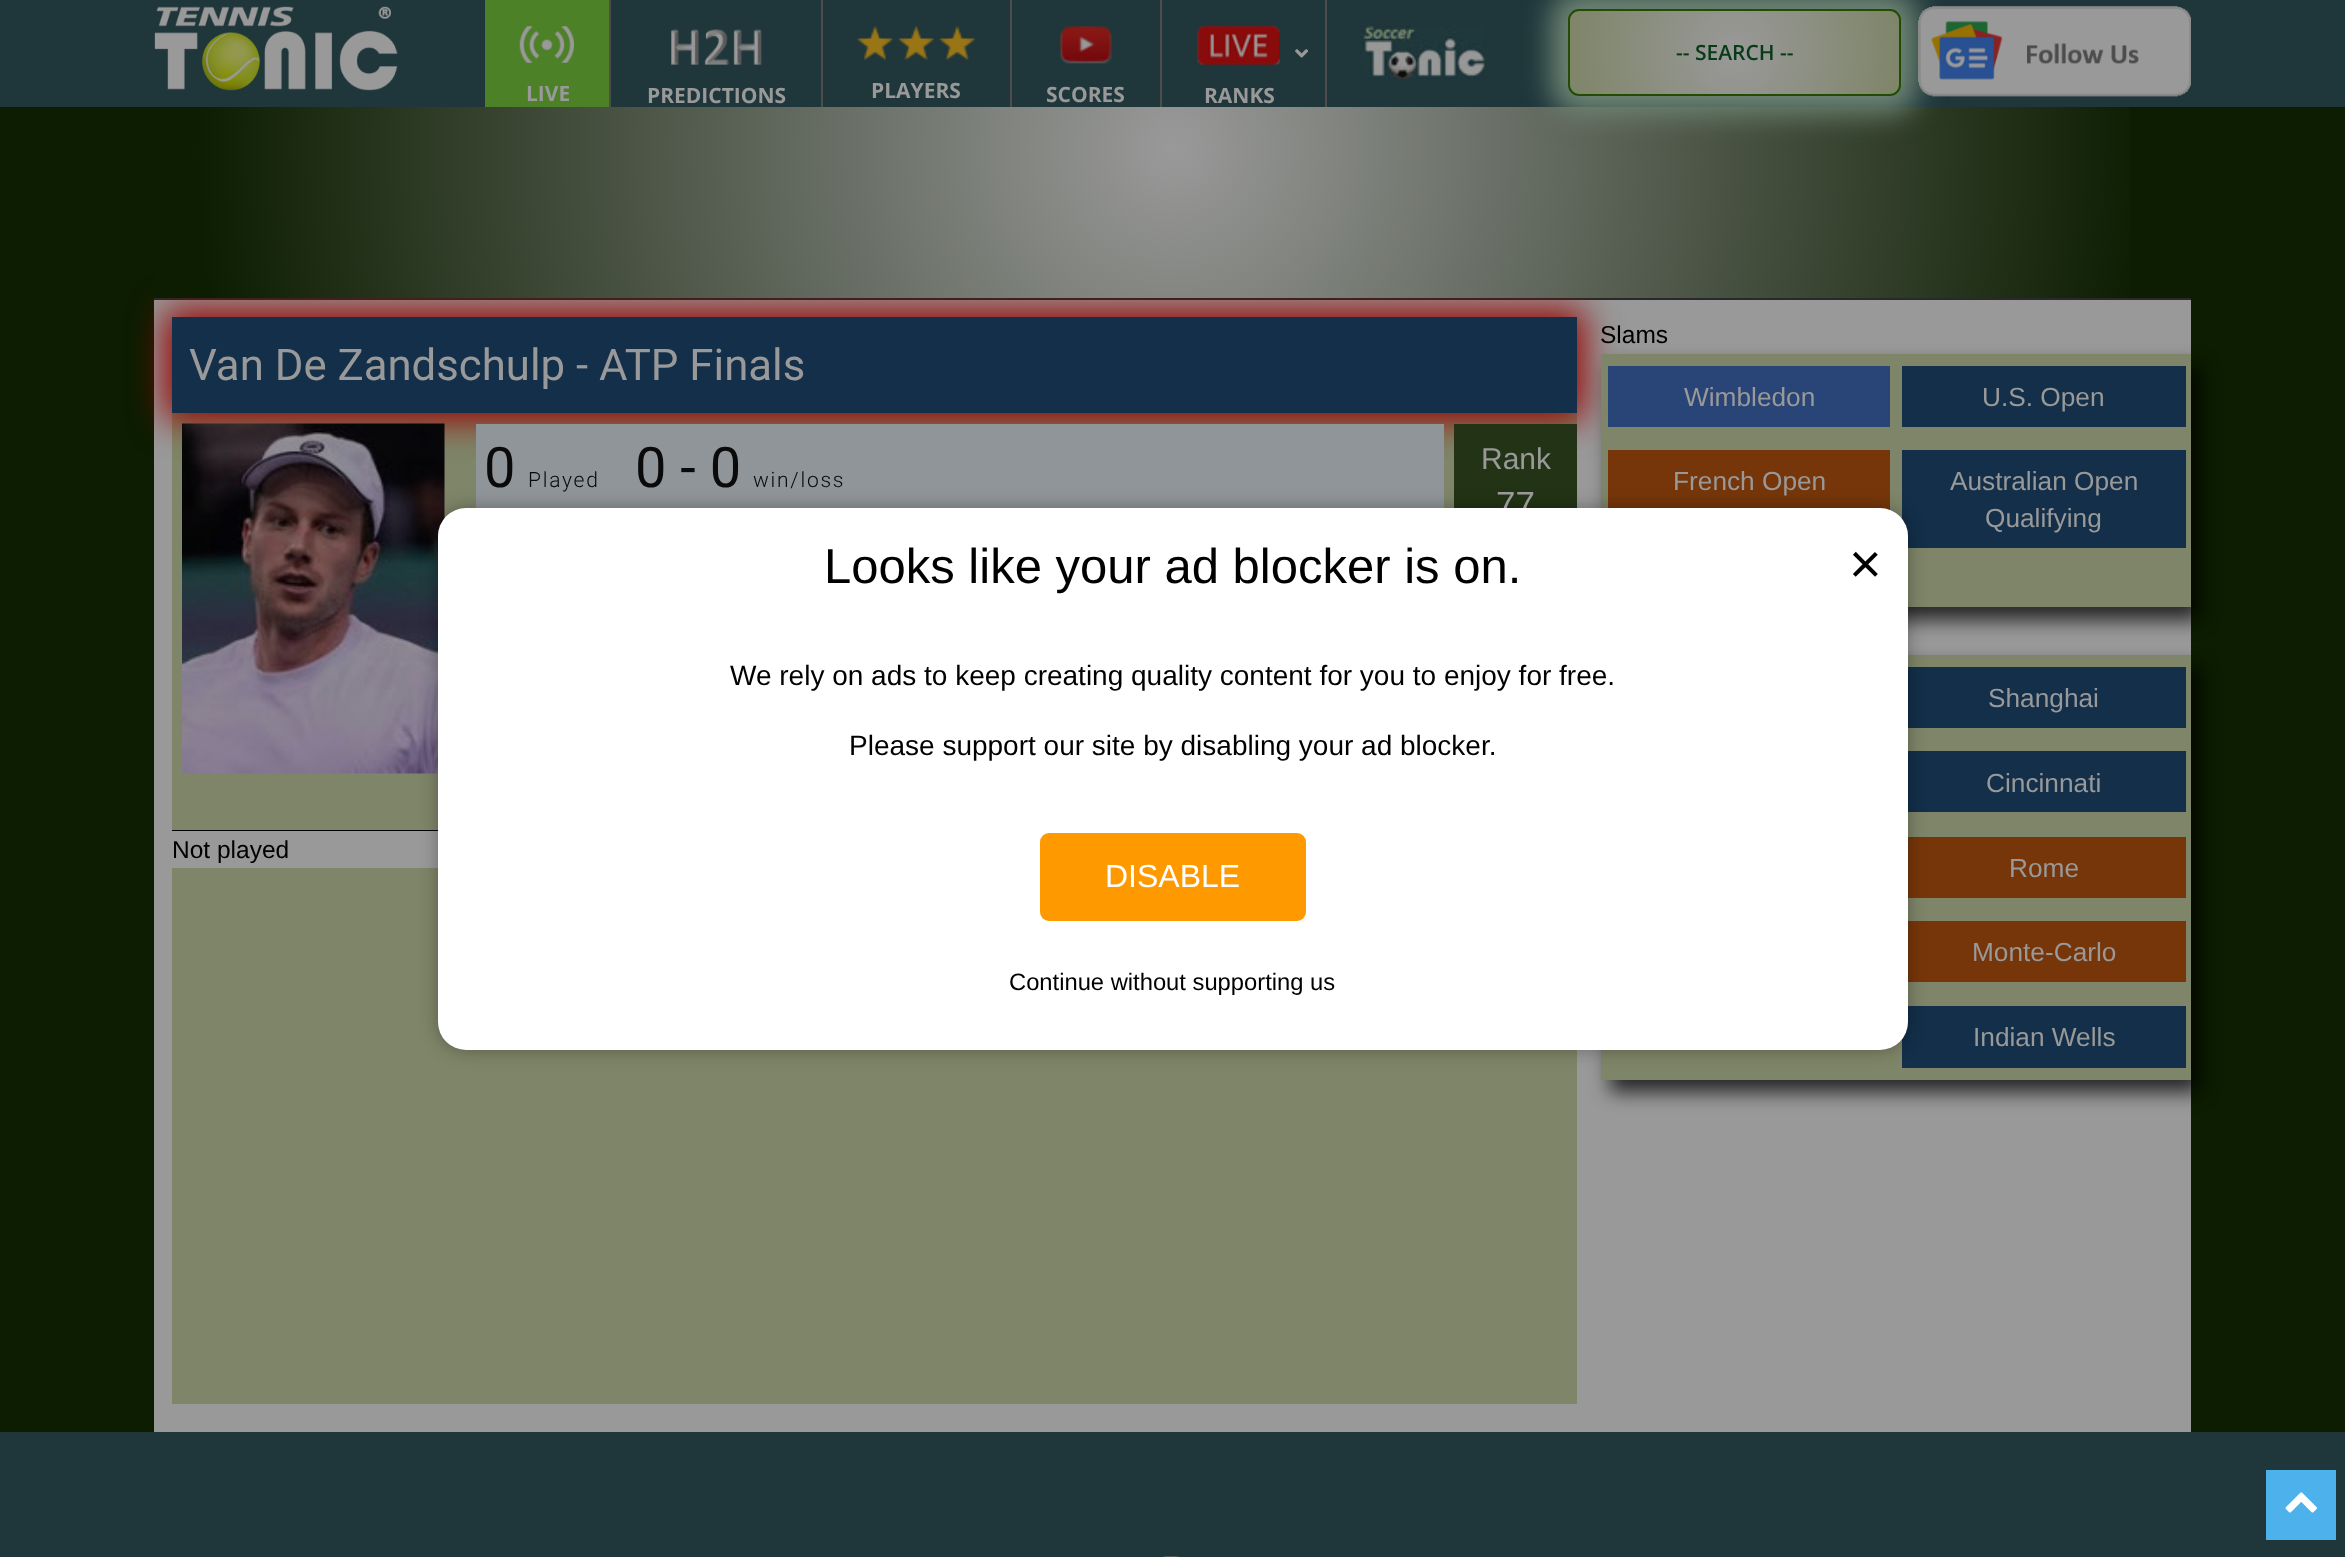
<?xml version="1.0" encoding="UTF-8"?>
<svg xmlns="http://www.w3.org/2000/svg" xmlns:xlink="http://www.w3.org/1999/xlink" width="2345" height="1557">
  <defs>
    <radialGradient id="g1" gradientUnits="userSpaceOnUse" cx="1173" cy="149" r="1029"><stop offset="0" stop-color="#999999" /><stop offset="0.95" stop-color="#0c1d01" /></radialGradient>
    <clipPath id="clip1"><rect x="1568" y="9" width="333" height="87" rx="11" /></clipPath>
    <radialGradient id="g2" gradientUnits="userSpaceOnUse" cx="1734" cy="53" r="170"><stop offset="0" stop-color="#999999" /><stop offset="1" stop-color="#7e8568" /></radialGradient>
  </defs>
  <rect width="100%" height="100%" fill="#0c1d01" />
  <rect width="2345" height="107" fill="#1f373b" />
  <image x="154" y="6" width="244" height="85" xlink:href="image1.png" />
  <rect x="154" y="298" width="2037" height="2" fill="#292929" />
  <rect x="154" y="300" width="2037" height="1132" fill="#999999" />
  <rect x="172" y="413" width="1405" height="991" fill="#7e8568" />
  <rect x="165" y="310" width="1419" height="110" fill="#990000" filter="blur(17.5px)" />
  <rect x="154" y="107" width="1976" height="191" fill="url(#g1)" />
  <rect x="1551" y="-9" width="367" height="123" rx="28" fill="#6e8574" filter="blur(14px)" />
  <g clip-path="url(#clip1)">
    <rect x="1570" y="11" width="329" height="84" fill="url(#g2)" />
  </g>
  <rect x="1569" y="10" width="331" height="85" rx="10" fill="none" stroke="#234c03" stroke-width="2" />
  <image x="1918" y="6" width="273" height="91" xlink:href="image2.png" />
  <rect x="485" width="124" height="107" fill="#4d8128" />
  <image x="519" y="26" width="55" height="37" xlink:href="image3.png" />
  <rect x="609" width="2" height="107" fill="#4d4d4d" />
  <image x="671" y="29" width="91" height="36" xlink:href="image4.png" />
  <rect x="821" width="2" height="107" fill="#4d4d4d" />
  <image x="857" y="26" width="118" height="34" xlink:href="image5.png" />
  <rect x="1010" width="2" height="107" fill="#4d4d4d" />
  <image x="1060" y="26" width="52" height="38" xlink:href="image6.png" />
  <rect x="1160" width="2" height="107" fill="#4d4d4d" />
  <image x="1197" y="26" width="83" height="39" xlink:href="image7.png" />
  <image x="1295" y="49" width="14" height="9" xlink:href="image8.png" />
  <rect x="1325" width="2" height="107" fill="#4d4d4d" />
  <image x="1361" y="26" width="124" height="53" xlink:href="image9.png" />
  <rect x="172" y="317" width="1405" height="96" fill="#132f49" />
  <image x="182" y="423" width="263" height="351" xlink:href="image10.png" />
  <rect x="476" y="424" width="968" height="84" fill="#909599" />
  <rect x="1454" y="424" width="123" height="84" fill="#223415" />
  <rect x="172" y="830" width="266" height="1" fill="#000000" />
  <rect x="172" y="831" width="266" height="37" fill="#999999" />
  <rect x="1610" y="366" width="590" height="254" fill="#000000" fill-opacity="0.75" filter="blur(9.5px)" />
  <rect x="1601" y="354" width="590" height="253" fill="#7e8568" />
  <rect x="1608" y="366" width="282" height="61" fill="#294476" />
  <rect x="1902" y="366" width="284" height="61" fill="#132f49" />
  <rect x="1608" y="450" width="282" height="60" fill="#76360a" />
  <rect x="1902" y="450" width="284" height="98" fill="#132f49" />
  <rect x="1610" y="667" width="590" height="425" fill="#000000" fill-opacity="0.75" filter="blur(9.5px)" />
  <rect x="1601" y="655" width="590" height="425" fill="#7e8568" />
  <rect x="1908" y="667" width="278" height="61" fill="#132f49" />
  <rect x="1908" y="751" width="278" height="61" fill="#132f49" />
  <rect x="1908" y="837" width="278" height="61" fill="#76360a" />
  <rect x="1908" y="921" width="278" height="61" fill="#76360a" />
  <rect x="1902" y="1006" width="284" height="62" fill="#132f49" />
  <rect x="438" y="508" width="1470" height="542" rx="28" fill="#000000" fill-opacity="0.3" filter="blur(9px)" />
  <rect y="1432" width="2345" height="125" fill="#1f373b" />
  <rect x="2266" y="1470" width="70" height="70" fill="#4db2ec" />
  <image x="2285" y="1492" width="32" height="21" xlink:href="image11.png" />
  <rect x="1153" y="1557" width="36" height="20" rx="18" fill="none" stroke="#777d7e" stroke-width="2" />
  <rect x="1153" y="1557" width="36" height="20" rx="18" fill="none" stroke="#525252" stroke-width="2" />
  <text x="1676" y="60" style="font-family: Open Sans; font-size: 21px; font-weight: 600; fill: #073b17">-- SEARCH --</text>
  <text x="526" y="101" style="font-family: Open Sans; font-size: 21px; font-weight: bold; fill: #999999">LIVE</text>
  <text x="647" y="103" style="font-family: Open Sans; font-size: 21px; font-weight: bold; fill: #999999">PREDICTIONS</text>
  <text x="871" y="98" style="font-family: Open Sans; font-size: 21px; font-weight: bold; fill: #999999">PLAYERS</text>
  <text x="1046" y="102" style="font-family: Open Sans; font-size: 21px; font-weight: bold; fill: #999999">SCORES</text>
  <text x="1204" y="103" style="font-family: Open Sans; font-size: 21px; font-weight: bold; fill: #999999">RANKS</text>
  <text x="189" y="380" style="font-family: Roboto; font-size: 43.75px; fill: #999999">Van De Zandschulp - ATP Finals</text>
  <text x="484" y="487" style="font-family: Roboto; font-size: 56px; fill: #0a0a0a">0</text>
  <text x="528" y="487" style="font-family: Roboto; font-size: 21px; font-weight: 300; letter-spacing: 1.75px; fill: #0a0a0a">Played</text>
  <text x="635" y="487" style="font-family: Roboto; font-size: 56px; fill: #0a0a0a">0 - 0</text>
  <text x="753" y="487" style="font-family: Roboto; font-size: 21px; font-weight: 300; letter-spacing: 1.75px; fill: #0a0a0a">win/loss</text>
  <text x="1481" y="469" style="font-family: Liberation Sans; font-size: 30px; fill: #999999">Rank</text>
  <text x="1496" y="516" style="font-family: Liberation Sans; font-size: 35px; fill: #999999">77</text>
  <text x="172" y="858" style="font-family: Liberation Sans; font-size: 24.5px; fill: #000000">Not played</text>
  <text x="1600" y="343" style="font-family: Liberation Sans; font-size: 24.5px; fill: #000000">Slams</text>
  <text x="1684" y="406" style="font-family: Liberation Sans; font-size: 26.25px; fill: #999999">Wimbledon</text>
  <text x="1982" y="406" style="font-family: Liberation Sans; font-size: 26.25px; fill: #999999">U.S. Open</text>
  <text x="1673" y="490" style="font-family: Liberation Sans; font-size: 26.25px; fill: #999999">French Open</text>
  <text x="1950" y="490" style="font-family: Liberation Sans; font-size: 26.25px; fill: #999999">Australian Open</text>
  <text x="1985" y="527" style="font-family: Liberation Sans; font-size: 26.25px; fill: #999999">Qualifying</text>
  <text x="1988" y="707" style="font-family: Liberation Sans; font-size: 26.25px; fill: #999999">Shanghai</text>
  <text x="1986" y="792" style="font-family: Liberation Sans; font-size: 26.25px; fill: #999999">Cincinnati</text>
  <text x="2009" y="877" style="font-family: Liberation Sans; font-size: 26.25px; fill: #999999">Rome</text>
  <text x="1972" y="961" style="font-family: Liberation Sans; font-size: 26.25px; fill: #999999">Monte-Carlo</text>
  <text x="1973" y="1046" style="font-family: Liberation Sans; font-size: 26.25px; fill: #999999">Indian Wells</text>
  <rect x="438" y="508" width="1470" height="542" rx="28" fill="#ffffff" />
  <text x="824" y="583" style="font-family: Liberation Sans; font-size: 49px; fill: #000000">Looks like your ad blocker is on.</text>
  <text x="1849" y="583" style="font-family: Liberation Sans; font-size: 56px; fill: #000000">×</text>
  <text x="730" y="685" style="font-family: Liberation Sans; font-size: 28px; fill: #000000">We rely on ads to keep creating quality content for you to enjoy for free.</text>
  <text x="849" y="755" style="font-family: Liberation Sans; font-size: 28px; fill: #000000">Please support our site by disabling your ad blocker.</text>
  <rect x="1040" y="833" width="266" height="88" rx="9" fill="#ff9900" />
  <text x="1105" y="887" style="font-family: Liberation Sans; font-size: 32px; fill: #ffffff">DISABLE</text>
  <text x="1009" y="990" style="font-family: Liberation Sans; font-size: 23.75px; fill: #000000">Continue without supporting us</text>
</svg>
